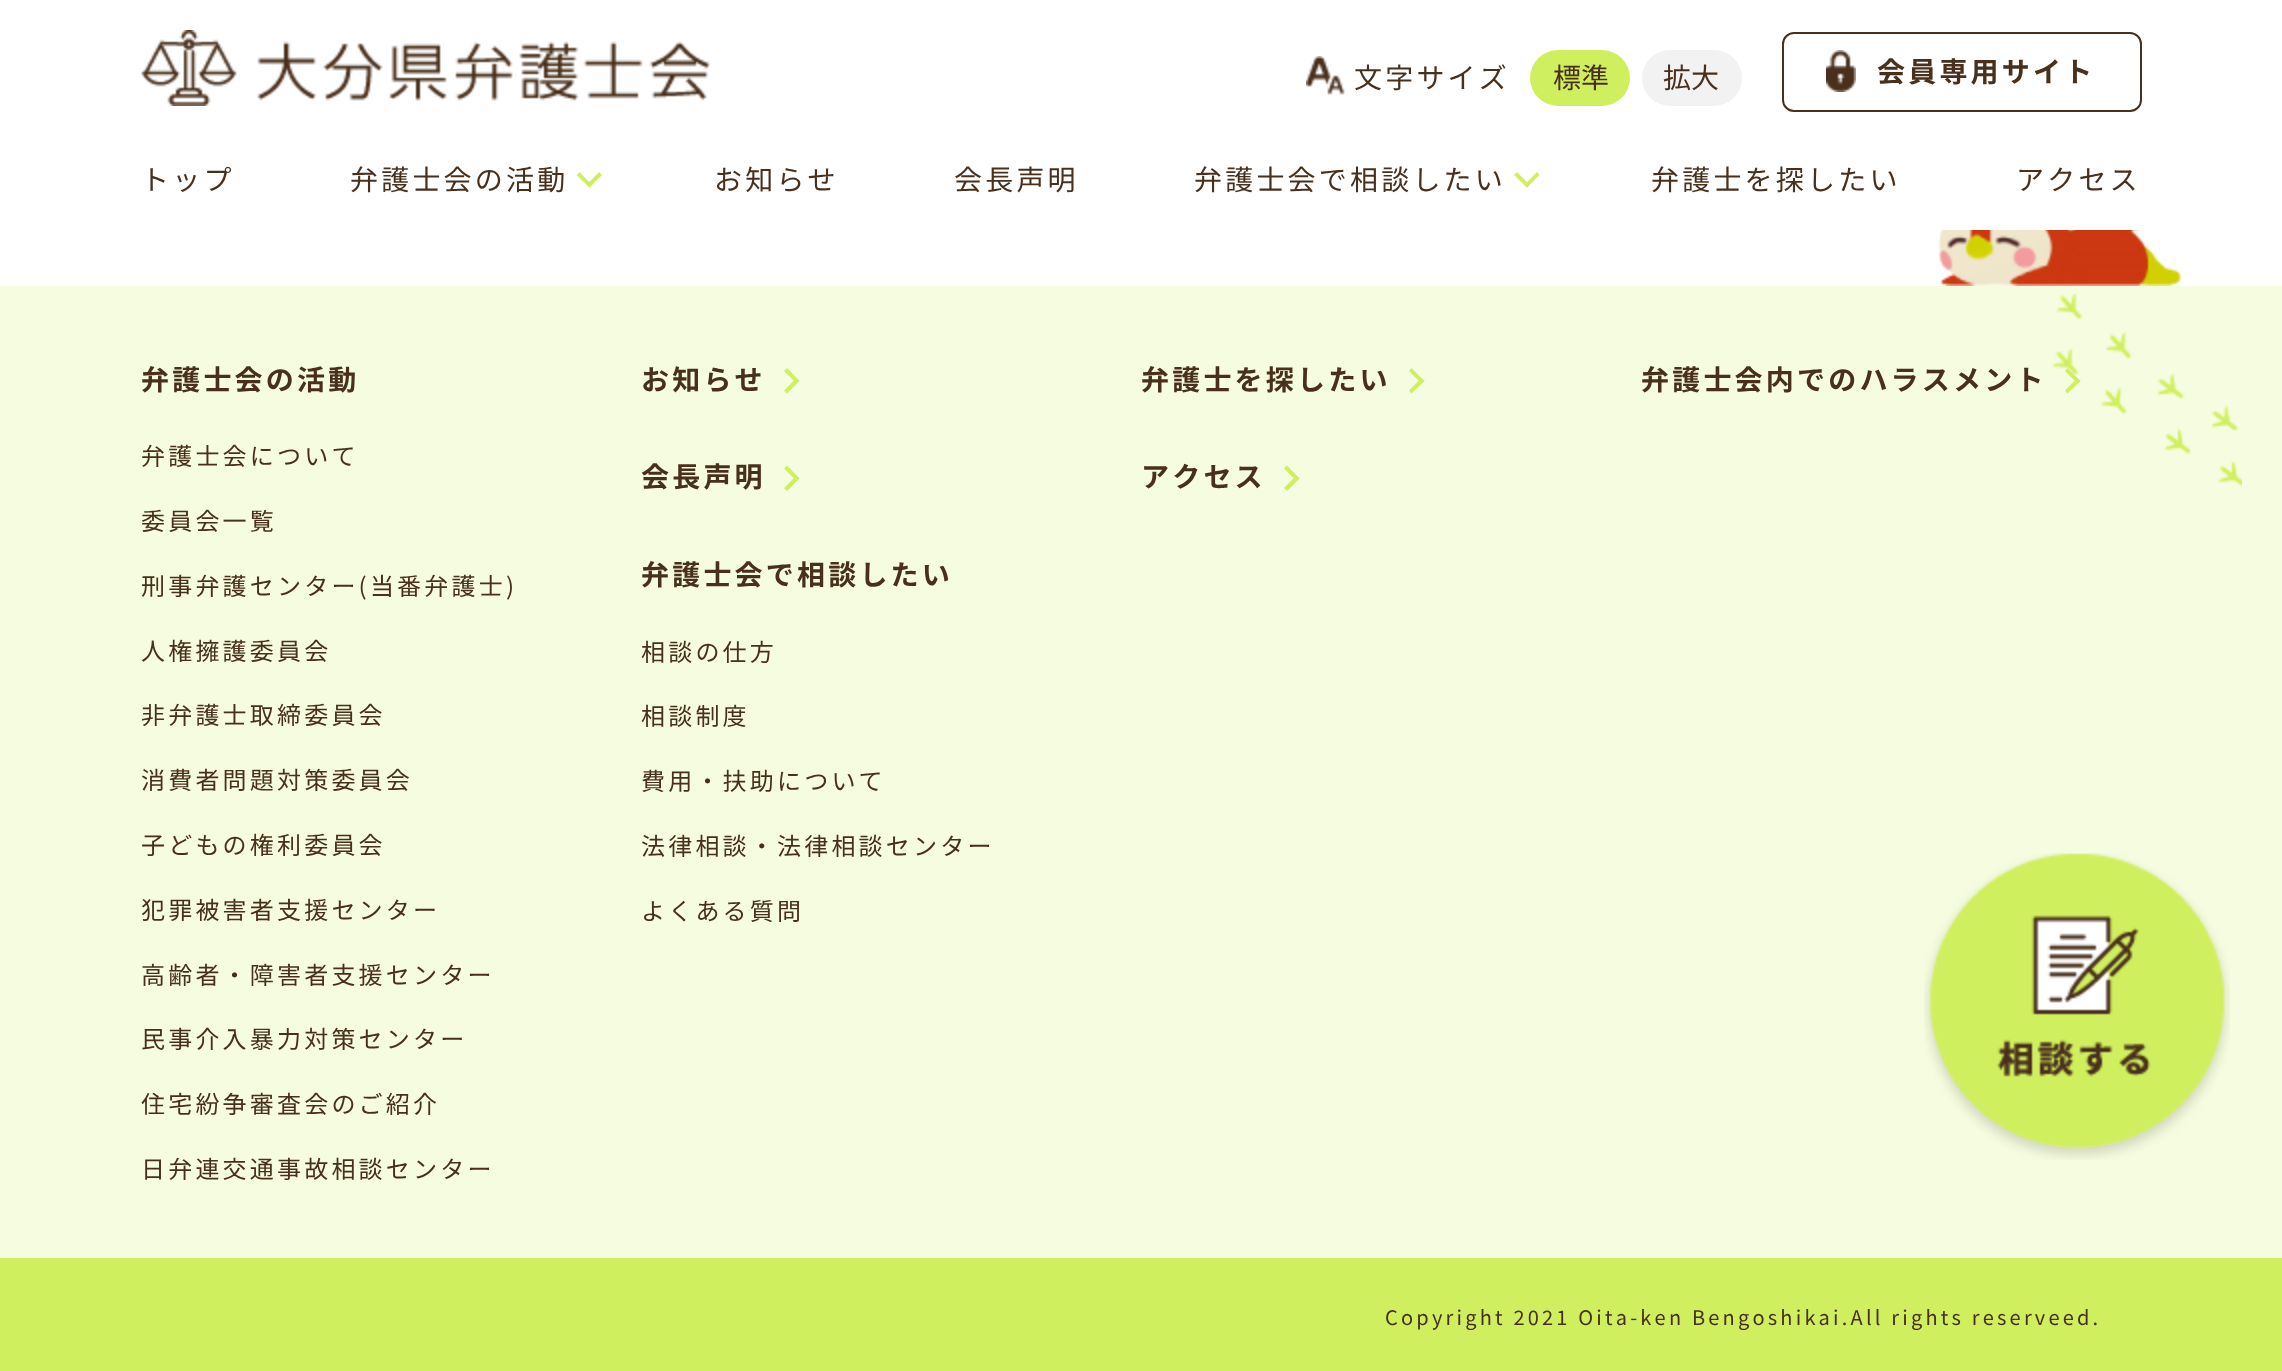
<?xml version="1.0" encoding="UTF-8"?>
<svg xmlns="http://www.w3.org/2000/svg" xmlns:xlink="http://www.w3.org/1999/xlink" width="2282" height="1371">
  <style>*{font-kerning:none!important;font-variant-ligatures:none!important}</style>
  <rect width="100%" height="100%" fill="#ffffff" />
  <image x="141" y="30" width="569" height="76" xlink:href="image1.png" />
  <image x="1306" y="56" width="39" height="39" xlink:href="image2.png" />
  <rect x="1530" y="50" width="100" height="56" rx="28" fill="#d0ef5e" />
  <rect x="1642" y="50" width="100" height="56" rx="28" fill="#f2f2f2" />
  <rect x="1783" y="33" width="358" height="78" rx="11" fill="none" stroke="#49301c" stroke-width="2" />
  <image x="1826" y="50" width="30" height="42" xlink:href="image3.png" />
  <path d="M 599 172 l 3 3 l -12.5 12.5 l -3 -2.5 z" fill="#d0ef5e" />
  <path d="M 579.5 172 l 12.5 13 l -2.5 2.5 l -13 -12.5 z" fill="#d0ef5e" />
  <path d="M 1537 172 l 2.5 3 l -12.5 12.5 l -3 -2.5 z" fill="#d0ef5e" />
  <path d="M 1517 172 l 12.5 13 l -2.5 2.5 l -13 -12.5 z" fill="#d0ef5e" />
  <rect y="286" width="2282" height="972" fill="#f6fcdf" />
  <circle cx="2078" cy="1008" r="140" fill="#ffffff" />
  <image x="1924" y="853" width="306" height="307" xlink:href="image4.png" />
  <image x="1937" y="230" width="245" height="56" xlink:href="image5.png" />
  <path d="M 784 371 l 3 -3 l 12.5 13 l -3 2.5 z" fill="#d0ef5e" />
  <path d="M 784 390.5 l 12.5 -12.5 l 3 3 l -12.5 12.5 z" fill="#d0ef5e" />
  <path d="M 784 468.5 l 3 -3 l 12.5 13 l -3 2.5 z" fill="#d0ef5e" />
  <path d="M 784 488 l 12.5 -12.5 l 3 3 l -12.5 12.5 z" fill="#d0ef5e" />
  <path d="M 1409 371 l 2.5 -3 l 13 13 l -3 2.5 z" fill="#d0ef5e" />
  <path d="M 1409 390.5 l 12.5 -12.5 l 3 3 l -13 12.5 z" fill="#d0ef5e" />
  <path d="M 1284 468.5 l 3 -3 l 12.5 13 l -3 2.5 z" fill="#d0ef5e" />
  <path d="M 1284 488 l 12.5 -12.5 l 3 3 l -12.5 12.5 z" fill="#d0ef5e" />
  <image x="2051" y="293" width="191" height="194" xlink:href="image6.png" />
  <path d="M 2065 371 l 2.5 -3 l 13 13 l -3 2.5 z" fill="#d0ef5e" />
  <path d="M 2065 390.5 l 12.5 -12.5 l 3 3 l -13 12.5 z" fill="#d0ef5e" />
  <rect y="1258" width="2282" height="113" fill="#d0ef5e" />
  <text x="1354" y="88" style="font-family: Noto Sans JP; font-size: 28px; letter-spacing: 3.2px; fill: #49301c">文字サイズ</text>
  <text x="1553" y="88" style="font-family: Noto Sans JP; font-size: 28px; fill: #49301c">標準</text>
  <text x="1663" y="88" style="font-family: Noto Sans JP; font-size: 28px; fill: #49301c">拡大</text>
  <text x="1877" y="82" style="font-family: Noto Sans JP; font-size: 28px; font-weight: bold; letter-spacing: 3.2px; fill: #49301c">会員専用サイト</text>
  <text x="141" y="190" style="font-family: Noto Sans JP; font-size: 28px; letter-spacing: 3.2px; fill: #49301c">トップ</text>
  <text x="350" y="190" style="font-family: Noto Sans JP; font-size: 28px; letter-spacing: 3.2px; fill: #49301c">弁護士会の活動</text>
  <text x="714" y="190" style="font-family: Noto Sans JP; font-size: 28px; letter-spacing: 3.2px; fill: #49301c">お知らせ</text>
  <text x="954" y="190" style="font-family: Noto Sans JP; font-size: 28px; letter-spacing: 3.2px; fill: #49301c">会長声明</text>
  <text x="1194" y="190" style="font-family: Noto Sans JP; font-size: 28px; letter-spacing: 3.2px; fill: #49301c">弁護士会で相談したい</text>
  <text x="1651" y="190" style="font-family: Noto Sans JP; font-size: 28px; letter-spacing: 3.2px; fill: #49301c">弁護士を探したい</text>
  <text x="2016" y="190" style="font-family: Noto Sans JP; font-size: 28px; letter-spacing: 3.2px; fill: #49301c">アクセス</text>
  <text x="141" y="390" style="font-family: Noto Sans JP; font-size: 28px; font-weight: bold; letter-spacing: 3.2px; fill: #49301c">弁護士会の活動</text>
  <text x="141" y="465" style="font-family: Noto Sans JP; font-size: 24px; letter-spacing: 3.2px; fill: #49301c">弁護士会について</text>
  <text x="141" y="530" style="font-family: Noto Sans JP; font-size: 24px; letter-spacing: 3.2px; fill: #49301c">委員会一覧</text>
  <text x="141" y="595" style="font-family: Noto Sans JP; font-size: 24px; letter-spacing: 3.2px; fill: #49301c">刑事弁護センター(当番弁護士)</text>
  <text x="141" y="660" style="font-family: Noto Sans JP; font-size: 24px; letter-spacing: 3.2px; fill: #49301c">人権擁護委員会</text>
  <text x="141" y="724" style="font-family: Noto Sans JP; font-size: 24px; letter-spacing: 3.2px; fill: #49301c">非弁護士取締委員会</text>
  <text x="141" y="789" style="font-family: Noto Sans JP; font-size: 24px; letter-spacing: 3.2px; fill: #49301c">消費者問題対策委員会</text>
  <text x="141" y="854" style="font-family: Noto Sans JP; font-size: 24px; letter-spacing: 3.2px; fill: #49301c">子どもの権利委員会</text>
  <text x="141" y="919" style="font-family: Noto Sans JP; font-size: 24px; letter-spacing: 3.2px; fill: #49301c">犯罪被害者支援センター</text>
  <text x="141" y="984" style="font-family: Noto Sans JP; font-size: 24px; letter-spacing: 3.2px; fill: #49301c">高齢者・障害者支援センター</text>
  <text x="141" y="1048" style="font-family: Noto Sans JP; font-size: 24px; letter-spacing: 3.2px; fill: #49301c">民事介入暴力対策センター</text>
  <text x="141" y="1113" style="font-family: Noto Sans JP; font-size: 24px; letter-spacing: 3.2px; fill: #49301c">住宅紛争審査会のご紹介</text>
  <text x="141" y="1178" style="font-family: Noto Sans JP; font-size: 24px; letter-spacing: 3.2px; fill: #49301c">日弁連交通事故相談センター</text>
  <text x="641" y="390" style="font-family: Noto Sans JP; font-size: 28px; font-weight: bold; letter-spacing: 3.2px; fill: #49301c">お知らせ</text>
  <text x="641" y="487" style="font-family: Noto Sans JP; font-size: 28px; font-weight: bold; letter-spacing: 3.2px; fill: #49301c">会長声明</text>
  <text x="641" y="585" style="font-family: Noto Sans JP; font-size: 28px; font-weight: bold; letter-spacing: 3.2px; fill: #49301c">弁護士会で相談したい</text>
  <text x="641" y="661" style="font-family: Noto Sans JP; font-size: 24px; letter-spacing: 3.2px; fill: #49301c">相談の仕方</text>
  <text x="641" y="725" style="font-family: Noto Sans JP; font-size: 24px; letter-spacing: 3.2px; fill: #49301c">相談制度</text>
  <text x="641" y="790" style="font-family: Noto Sans JP; font-size: 24px; letter-spacing: 3.2px; fill: #49301c">費用・扶助について</text>
  <text x="641" y="855" style="font-family: Noto Sans JP; font-size: 24px; letter-spacing: 3.2px; fill: #49301c">法律相談・法律相談センター</text>
  <text x="641" y="920" style="font-family: Noto Sans JP; font-size: 24px; letter-spacing: 3.2px; fill: #49301c">よくある質問</text>
  <text x="1141" y="390" style="font-family: Noto Sans JP; font-size: 28px; font-weight: bold; letter-spacing: 3.2px; fill: #49301c">弁護士を探したい</text>
  <text x="1141" y="487" style="font-family: Noto Sans JP; font-size: 28px; font-weight: bold; letter-spacing: 3.2px; fill: #49301c">アクセス</text>
  <text x="1641" y="390" style="font-family: Noto Sans JP; font-size: 28px; font-weight: bold; letter-spacing: 3.2px; fill: #49301c">弁護士会内でのハラスメント</text>
  <text x="1385" y="1325" style="font-family: Noto Sans JP; font-size: 20px; letter-spacing: 3.2px; fill: #49301c">Copyright 2021 Oita-ken Bengoshikai.All rights reserveed.</text>
</svg>
